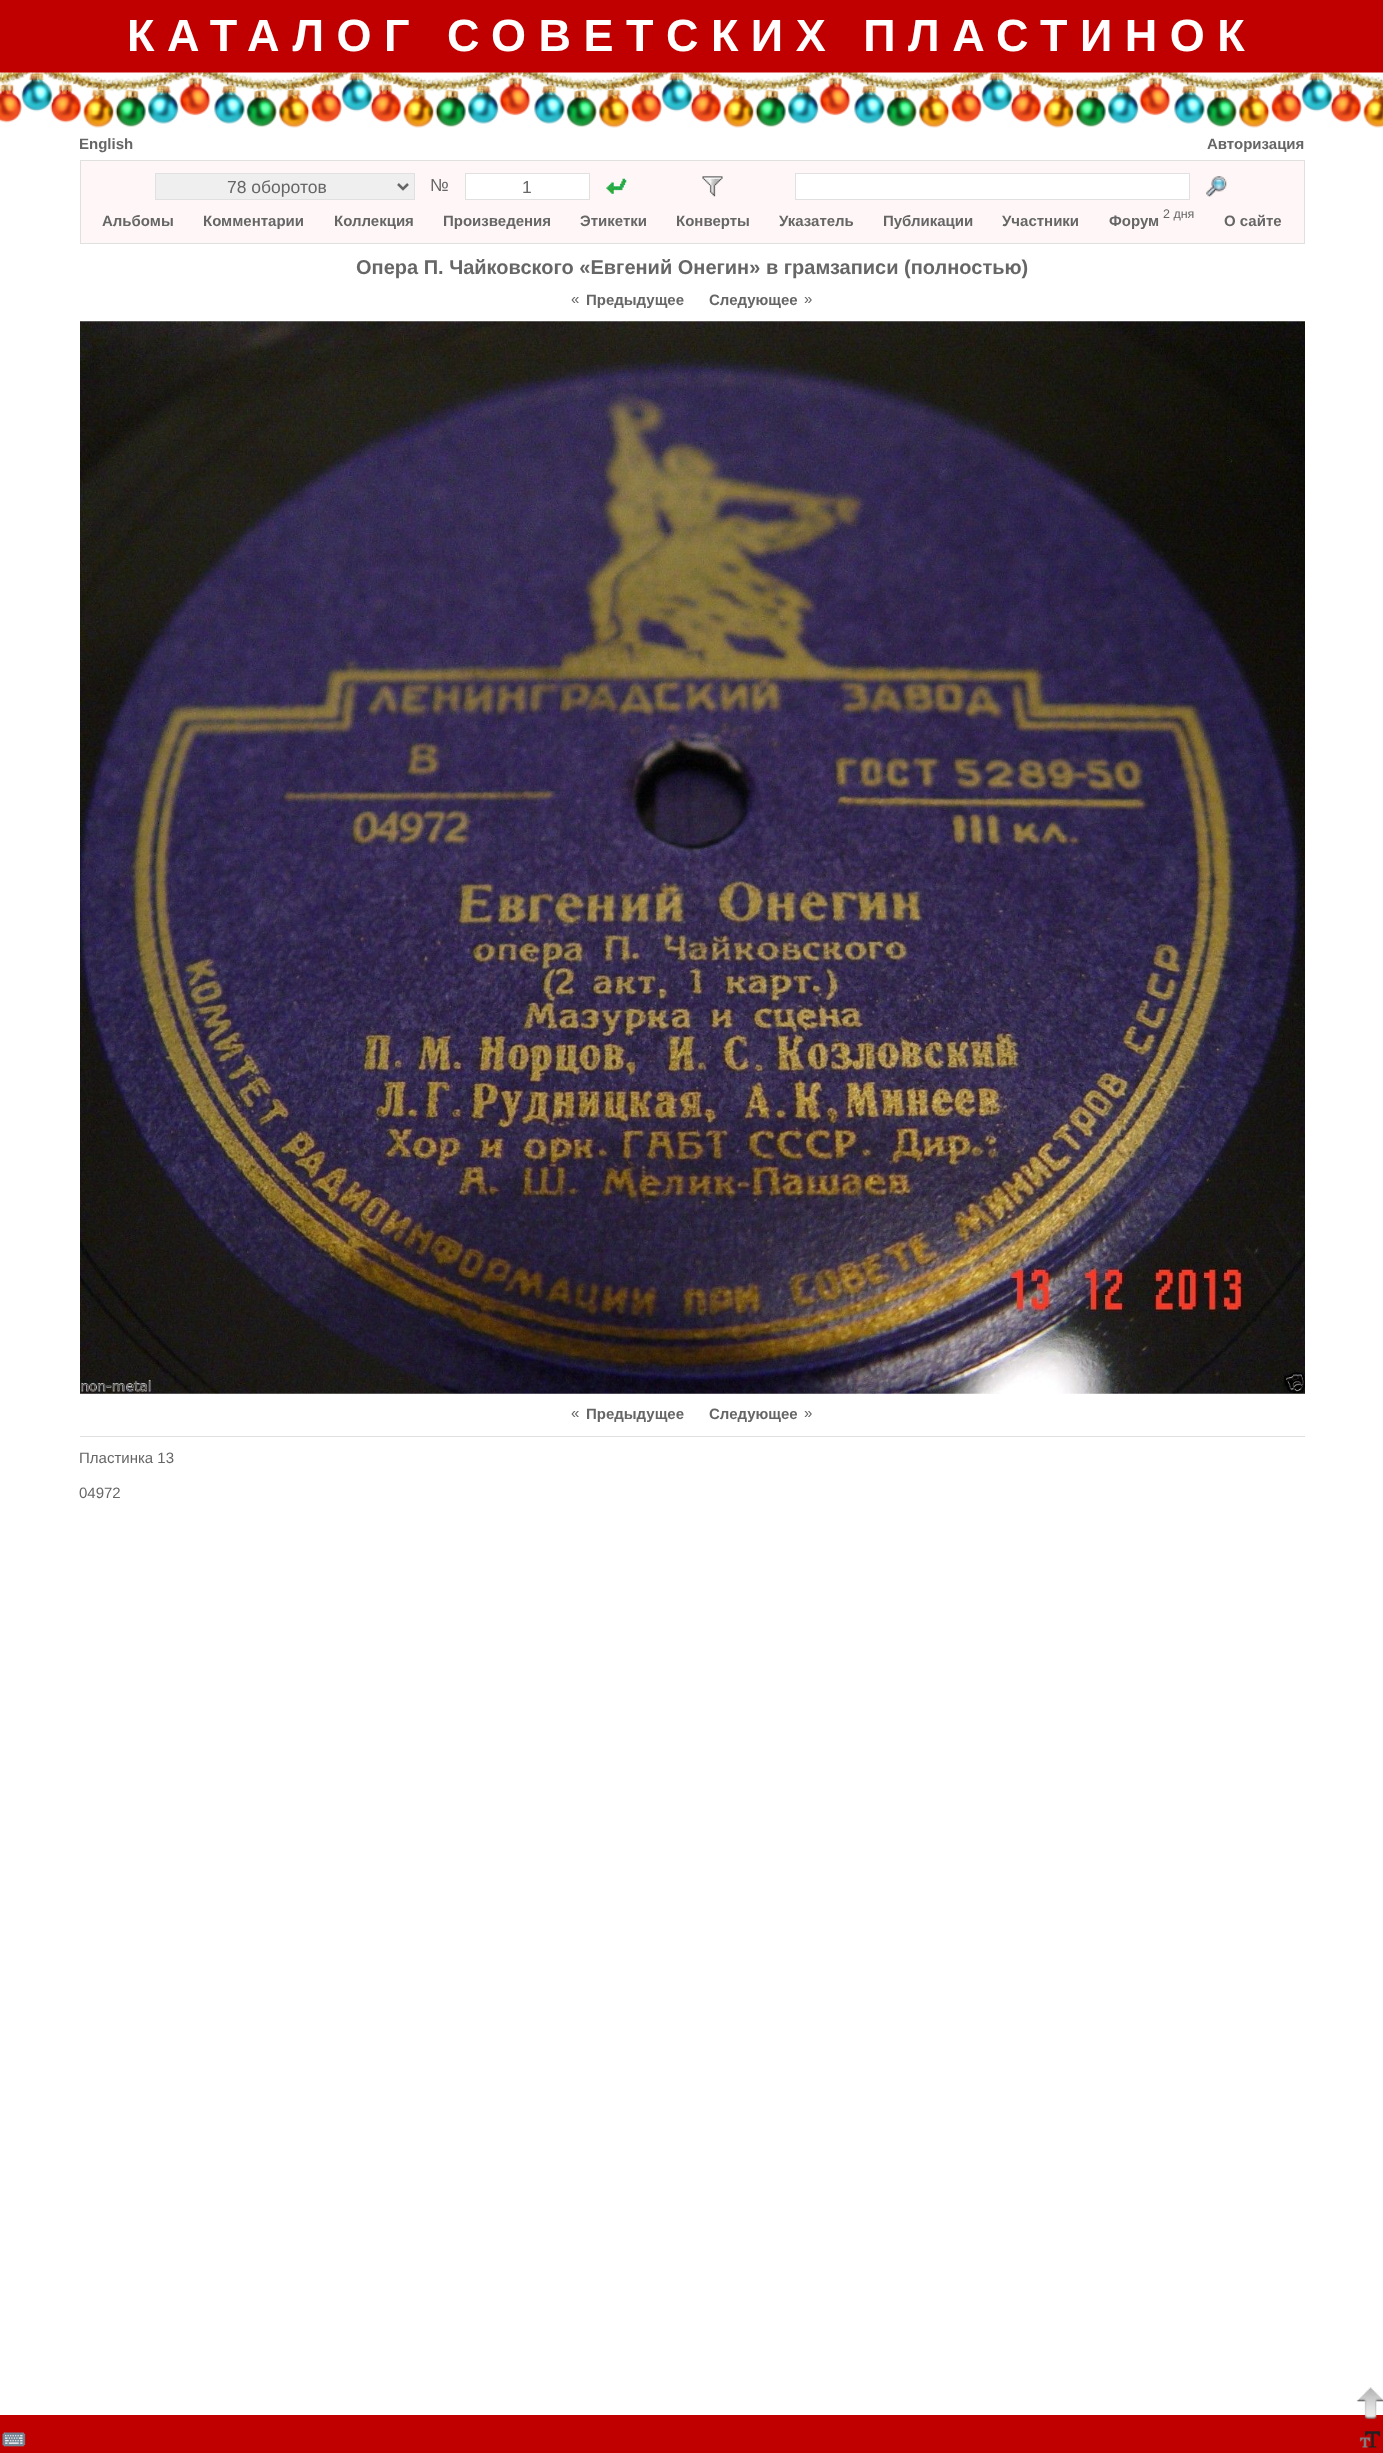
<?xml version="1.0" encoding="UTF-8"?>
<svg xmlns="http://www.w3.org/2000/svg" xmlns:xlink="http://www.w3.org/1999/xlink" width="1383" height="2453">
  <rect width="100%" height="100%" fill="#ffffff" />
  <rect width="1383" height="73" fill="#c00000" />
  <image x="0" y="72" width="1383" height="56" xlink:href="image1.png" />
  <rect x="80.5" y="160.5" width="1224" height="83" fill="#fff7f7" stroke="#e0e0e0" />
  <rect x="155.5" y="173.5" width="259" height="26" fill="#efefef" stroke="#e0e0e0" />
  <path d="M 398 184 l 5 5 l 5 -5" fill="none" stroke="#666666" stroke-width="2.5" />
  <rect x="465.5" y="173.5" width="124" height="26" fill="#ffffff" stroke="#e0e0e0" />
  <image x="606" y="178" width="21" height="16" xlink:href="image2.png" />
  <image x="702" y="176" width="21" height="21" xlink:href="image3.png" />
  <rect x="795.5" y="173.5" width="394" height="26" fill="#ffffff" stroke="#e0e0e0" />
  <image x="1206" y="176" width="21" height="21" xlink:href="image4.png" />
  <image x="80" y="321" width="1225" height="1073" xlink:href="image5.png" />
  <rect x="80" y="1436" width="1225" height="1" fill="#e0e0e0" />
  <rect y="2415" width="1383" height="38" fill="#c00000" />
  <image x="1356" y="2387" width="27" height="32" xlink:href="image6.png" />
  <image x="2" y="2432" width="24" height="15" xlink:href="image7.png" />
  <image x="1359" y="2431" width="22" height="17" xlink:href="image8.png" />
  <text x="127" y="51" style="font-family: Liberation Sans; font-size: 45px; font-weight: bold; letter-spacing: 12.5px; fill: #ffffff">КАТАЛОГ СОВЕТСКИХ ПЛАСТИНОК</text>
  <text x="79" y="149" style="font-family: Liberation Sans; font-size: 15px; font-weight: bold; fill: #666666">English</text>
  <text x="1207" y="149" style="font-family: Liberation Sans; font-size: 15px; font-weight: bold; fill: #666666">Авторизация</text>
  <text x="227" y="193" style="font-family: Liberation Sans; font-size: 17.5px; fill: #666666">78 оборотов</text>
  <text x="430" y="191" style="font-family: Liberation Sans; font-size: 17.5px; fill: #666666">№</text>
  <text x="522" y="193" style="font-family: Liberation Sans; font-size: 17.5px; fill: #666666">1</text>
  <text x="102" y="226" style="font-family: Liberation Sans; font-size: 15px; font-weight: bold; fill: #666666">Альбомы</text>
  <text x="203" y="226" style="font-family: Liberation Sans; font-size: 15px; font-weight: bold; fill: #666666">Комментарии</text>
  <text x="334" y="226" style="font-family: Liberation Sans; font-size: 15px; font-weight: bold; fill: #666666">Коллекция</text>
  <text x="443" y="226" style="font-family: Liberation Sans; font-size: 15px; font-weight: bold; fill: #666666">Произведения</text>
  <text x="580" y="226" style="font-family: Liberation Sans; font-size: 15px; font-weight: bold; fill: #666666">Этикетки</text>
  <text x="676" y="226" style="font-family: Liberation Sans; font-size: 15px; font-weight: bold; fill: #666666">Конверты</text>
  <text x="779" y="226" style="font-family: Liberation Sans; font-size: 15px; font-weight: bold; fill: #666666">Указатель</text>
  <text x="883" y="226" style="font-family: Liberation Sans; font-size: 15px; font-weight: bold; fill: #666666">Публикации</text>
  <text x="1002" y="226" style="font-family: Liberation Sans; font-size: 15px; font-weight: bold; fill: #666666">Участники</text>
  <text x="1109" y="226" style="font-family: Liberation Sans; font-size: 15px; font-weight: bold; fill: #666666">Форум</text>
  <text x="1163" y="218" style="font-family: Liberation Sans; font-size: 12.5px; fill: #666666">2 дня</text>
  <text x="1224" y="226" style="font-family: Liberation Sans; font-size: 15px; font-weight: bold; fill: #666666">О сайте</text>
  <text x="356" y="274" style="font-family: Liberation Sans; font-size: 20px; font-weight: bold; fill: #666666">Опера П. Чайковского «Евгений Онегин» в грамзаписи (полностью)</text>
  <text x="571" y="304" style="font-family: Liberation Sans; font-size: 15px; fill: #666666">«</text>
  <text x="586" y="305" style="font-family: Liberation Sans; font-size: 15px; font-weight: bold; fill: #666666">Предыдущее</text>
  <text x="709" y="305" style="font-family: Liberation Sans; font-size: 15px; font-weight: bold; fill: #666666">Следующее</text>
  <text x="804" y="304" style="font-family: Liberation Sans; font-size: 15px; fill: #666666">»</text>
  <text x="571" y="1418" style="font-family: Liberation Sans; font-size: 15px; fill: #666666">«</text>
  <text x="586" y="1419" style="font-family: Liberation Sans; font-size: 15px; font-weight: bold; fill: #666666">Предыдущее</text>
  <text x="709" y="1419" style="font-family: Liberation Sans; font-size: 15px; font-weight: bold; fill: #666666">Следующее</text>
  <text x="804" y="1418" style="font-family: Liberation Sans; font-size: 15px; fill: #666666">»</text>
  <text x="79" y="1463" style="font-family: Liberation Sans; font-size: 15px; fill: #666666">Пластинка 13</text>
  <text x="79" y="1498" style="font-family: Liberation Sans; font-size: 15px; fill: #666666">04972</text>
</svg>
